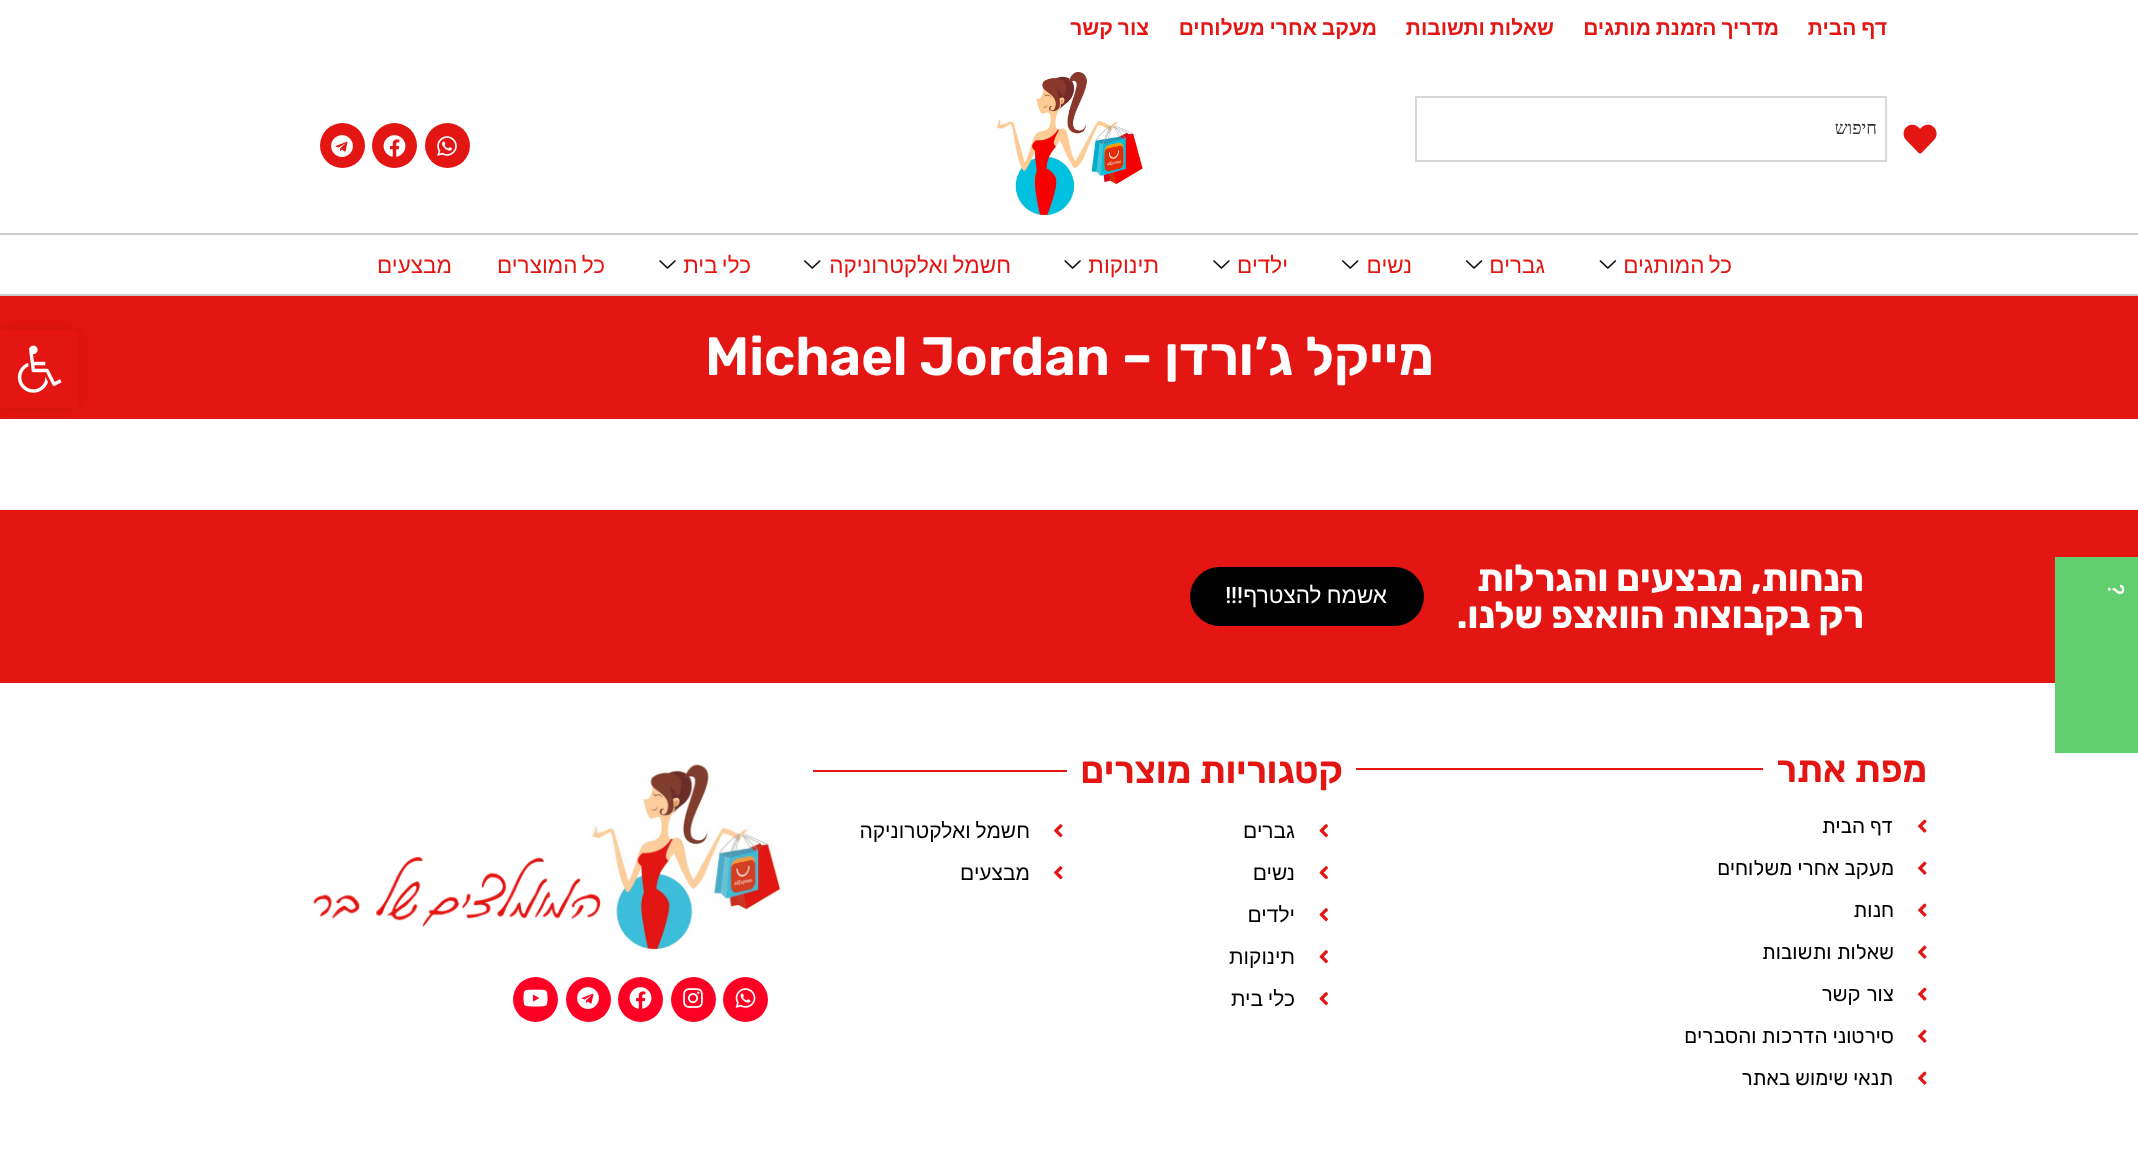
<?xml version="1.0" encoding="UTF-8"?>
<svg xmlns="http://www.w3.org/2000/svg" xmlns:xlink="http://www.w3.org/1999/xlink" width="2138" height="1173">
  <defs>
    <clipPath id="clip1"><path d="M 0 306 h 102 v 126 h -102 z m 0 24 h 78 v 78 h -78 z" clip-rule="evenodd" /></clipPath>
  </defs>
  <rect width="100%" height="100%" fill="#ffffff" />
  <image x="1903" y="124" width="34" height="30" xlink:href="image1.png" />
  <rect x="1416" y="97" width="470" height="64" fill="none" stroke="#d8d8d8" stroke-width="2" />
  <image x="996" y="72" width="147" height="144" xlink:href="image2.png" />
  <circle cx="447.5" cy="145.5" r="22.5" fill="#e31613" />
  <image x="437" y="136" width="20" height="20" xlink:href="image3.png" />
  <circle cx="394.5" cy="145.5" r="22.5" fill="#e31613" />
  <image x="383" y="135" width="23" height="22" xlink:href="image4.png" />
  <circle cx="342.5" cy="145.5" r="22.5" fill="#e31613" />
  <image x="331" y="135" width="22" height="22" xlink:href="image5.png" />
  <rect y="233" width="2138" height="2" fill="#cccccc" />
  <rect y="294" width="2138" height="2" fill="#cccccc" />
  <image x="1599" y="260" width="17" height="9" xlink:href="image6.png" />
  <image x="1465" y="260" width="18" height="9" xlink:href="image7.png" />
  <image x="1342" y="260" width="17" height="9" xlink:href="image8.png" />
  <image x="1213" y="260" width="17" height="9" xlink:href="image9.png" />
  <image x="1064" y="260" width="17" height="9" xlink:href="image10.png" />
  <image x="804" y="260" width="17" height="9" xlink:href="image11.png" />
  <image x="659" y="260" width="17" height="9" xlink:href="image12.png" />
  <rect y="296" width="2138" height="123" fill="#e31613" />
  <rect y="510" width="2138" height="173" fill="#e31613" />
  <rect x="2055" y="557" width="83" height="196" fill="#61ce70" />
  <rect x="1190" y="567" width="234" height="59" rx="29.5" fill="#000000" />
  <rect x="1356" y="768" width="407" height="2" fill="#e31613" />
  <image x="1918" y="819" width="9" height="14" xlink:href="image13.png" />
  <image x="1918" y="861" width="9" height="14" xlink:href="image13.png" />
  <image x="1918" y="903" width="9" height="14" xlink:href="image13.png" />
  <image x="1918" y="945" width="9" height="14" xlink:href="image13.png" />
  <image x="1918" y="987" width="9" height="14" xlink:href="image13.png" />
  <image x="1918" y="1029" width="9" height="14" xlink:href="image13.png" />
  <image x="1918" y="1071" width="9" height="14" xlink:href="image13.png" />
  <rect x="813" y="770" width="254" height="2" fill="#e31613" />
  <image x="1319" y="824" width="9" height="14" xlink:href="image14.png" />
  <image x="1319" y="866" width="9" height="14" xlink:href="image14.png" />
  <image x="1319" y="908" width="9" height="14" xlink:href="image14.png" />
  <image x="1319" y="950" width="9" height="14" xlink:href="image14.png" />
  <image x="1319" y="992" width="9" height="14" xlink:href="image14.png" />
  <image x="1054" y="824" width="9" height="14" xlink:href="image15.png" />
  <image x="1054" y="866" width="9" height="14" xlink:href="image15.png" />
  <image x="313" y="764" width="471" height="189" xlink:href="image16.png" />
  <circle cx="745.5" cy="999.5" r="22.5" fill="#ff0025" />
  <image x="735" y="988" width="21" height="20" xlink:href="image17.png" />
  <circle cx="693.5" cy="999.5" r="22.5" fill="#ff0025" />
  <image x="683" y="988" width="20" height="20" xlink:href="image18.png" />
  <circle cx="640.5" cy="999.5" r="22.5" fill="#ff0025" />
  <image x="629" y="987" width="23" height="22" xlink:href="image19.png" />
  <circle cx="588.5" cy="999.5" r="22.5" fill="#ff0025" />
  <image x="577" y="987" width="22" height="22" xlink:href="image20.png" />
  <circle cx="535.5" cy="999.5" r="22.5" fill="#ff0025" />
  <image x="523" y="989" width="25" height="18" xlink:href="image21.png" />
  <g clip-path="url(#clip1)">
    <rect y="330" width="78" height="78" fill="#000000" fill-opacity="0.1" filter="blur(7.5px)" />
  </g>
  <image x="17" y="345" width="45" height="48" xlink:href="image22.png" />
  <text x="1887" y="35" word-spacing="-1" style="font-family: Liberation Sans; font-size: 21px; font-weight: bold; direction: rtl; fill: #e31613">דף הבית</text>
  <text x="1779" y="35" word-spacing="-1" style="font-family: Liberation Sans; font-size: 21px; font-weight: bold; direction: rtl; fill: #e31613">מדריך הזמנת מותגים</text>
  <text x="1554" y="35" word-spacing="-1" style="font-family: Liberation Sans; font-size: 21px; font-weight: bold; direction: rtl; fill: #e31613">שאלות ותשובות</text>
  <text x="1377" y="35" word-spacing="-1" style="font-family: Liberation Sans; font-size: 21px; font-weight: bold; direction: rtl; fill: #e31613">מעקב אחרי משלוחים</text>
  <text x="1149" y="35" word-spacing="-1" style="font-family: Liberation Sans; font-size: 21px; font-weight: bold; direction: rtl; fill: #e31613">צור קשר</text>
  <text x="1877" y="134" style="font-family: Liberation Serif; font-size: 18px; direction: rtl; fill: #313131">חיפוש</text>
  <text x="1732" y="273" word-spacing="-2" style="font-family: Liberation Sans; font-size: 22.5px; direction: rtl; fill: #e31613">כל המותגים</text>
  <text x="1545" y="273" style="font-family: Liberation Sans; font-size: 22.5px; direction: rtl; fill: #e31613">גברים</text>
  <text x="1412" y="273" style="font-family: Liberation Sans; font-size: 22.5px; direction: rtl; fill: #e31613">נשים</text>
  <text x="1288" y="273" style="font-family: Liberation Sans; font-size: 22.5px; direction: rtl; fill: #e31613">ילדים</text>
  <text x="1159" y="273" style="font-family: Liberation Sans; font-size: 22.5px; direction: rtl; fill: #e31613">תינוקות</text>
  <text x="1011" y="273" word-spacing="-2" style="font-family: Liberation Sans; font-size: 22.5px; direction: rtl; fill: #e31613">חשמל ואלקטרוניקה</text>
  <text x="751" y="273" word-spacing="-2" style="font-family: Liberation Sans; font-size: 22.5px; direction: rtl; fill: #e31613">כלי בית</text>
  <text x="605" y="273" word-spacing="-2" style="font-family: Liberation Sans; font-size: 22.5px; direction: rtl; fill: #e31613">כל המוצרים</text>
  <text x="452" y="273" style="font-family: Liberation Sans; font-size: 22.5px; direction: rtl; fill: #e31613">מבצעים</text>
  <text x="1434" y="375" style="font-family: Rubik; font-size: 54px; font-weight: 600; direction: rtl; fill: #ffffff">מייקל ג’ורדן –</text>
  <text x="705" y="375" style="font-family: Rubik; font-size: 54px; font-weight: 600; fill: #ffffff">Michael Jordan</text>
  <text x="2108" y="595" transform="rotate(90 2108 595)" style="font-family: Roboto; font-size: 22.5px; font-weight: 500; direction: rtl; fill: #ffffff">?</text>
  <text x="2207" y="605" transform="rotate(90 2207 605)" word-spacing="-1" style="font-family: Liberation Sans; font-size: 22.5px; direction: rtl; fill: #ffffff">איך מזמינים</text>
  <text x="1864" y="591" style="font-family: Rubik; font-size: 37.5px; font-weight: bold; direction: rtl; fill: #ffffff">הנחות, מבצעים והגרלות</text>
  <text x="1864" y="628" style="font-family: Rubik; font-size: 37.5px; font-weight: bold; direction: rtl; fill: #ffffff">רק בקבוצות הוואצפ שלנו.</text>
  <text x="1387" y="603" word-spacing="-1" style="font-family: Liberation Sans; font-size: 22.5px; direction: rtl; fill: #ffffff">אשמח להצטרף</text>
  <text x="1243" y="603" style="font-family: Roboto; font-size: 22.5px; font-weight: 500; direction: rtl; fill: #ffffff">!!!</text>
  <text x="1927" y="782" style="font-family: Rubik; font-size: 37.5px; font-weight: 600; direction: rtl; fill: #e31613">מפת אתר</text>
  <text x="1893" y="833" style="font-family: Rubik; font-size: 21px; direction: rtl; fill: #000000">דף הבית</text>
  <text x="1894" y="875" style="font-family: Rubik; font-size: 21px; direction: rtl; fill: #000000">מעקב אחרי משלוחים</text>
  <text x="1894" y="917" style="font-family: Rubik; font-size: 21px; direction: rtl; fill: #000000">חנות</text>
  <text x="1894" y="959" style="font-family: Rubik; font-size: 21px; direction: rtl; fill: #000000">שאלות ותשובות</text>
  <text x="1894" y="1001" word-spacing="1" style="font-family: Rubik; font-size: 21px; direction: rtl; fill: #000000">צור קשר</text>
  <text x="1894" y="1043" style="font-family: Rubik; font-size: 21px; direction: rtl; fill: #000000">סירטוני הדרכות והסברים</text>
  <text x="1893" y="1085" style="font-family: Rubik; font-size: 21px; direction: rtl; fill: #000000">תנאי שימוש באתר</text>
  <text x="1343" y="783" style="font-family: Rubik; font-size: 37.5px; font-weight: 600; direction: rtl; fill: #e31613">קטגוריות מוצרים</text>
  <text x="1295" y="838" style="font-family: Liberation Sans; font-size: 21px; direction: rtl; fill: #000000">גברים</text>
  <text x="1295" y="880" style="font-family: Liberation Sans; font-size: 21px; direction: rtl; fill: #000000">נשים</text>
  <text x="1295" y="922" style="font-family: Liberation Sans; font-size: 21px; direction: rtl; fill: #000000">ילדים</text>
  <text x="1295" y="964" style="font-family: Liberation Sans; font-size: 21px; direction: rtl; fill: #000000">תינוקות</text>
  <text x="1295" y="1006" word-spacing="-1" style="font-family: Liberation Sans; font-size: 21px; direction: rtl; fill: #000000">כלי בית</text>
  <text x="1030" y="838" word-spacing="-1" style="font-family: Liberation Sans; font-size: 21px; direction: rtl; fill: #000000">חשמל ואלקטרוניקה</text>
  <text x="1030" y="880" style="font-family: Liberation Sans; font-size: 21px; direction: rtl; fill: #000000">מבצעים</text>
</svg>
